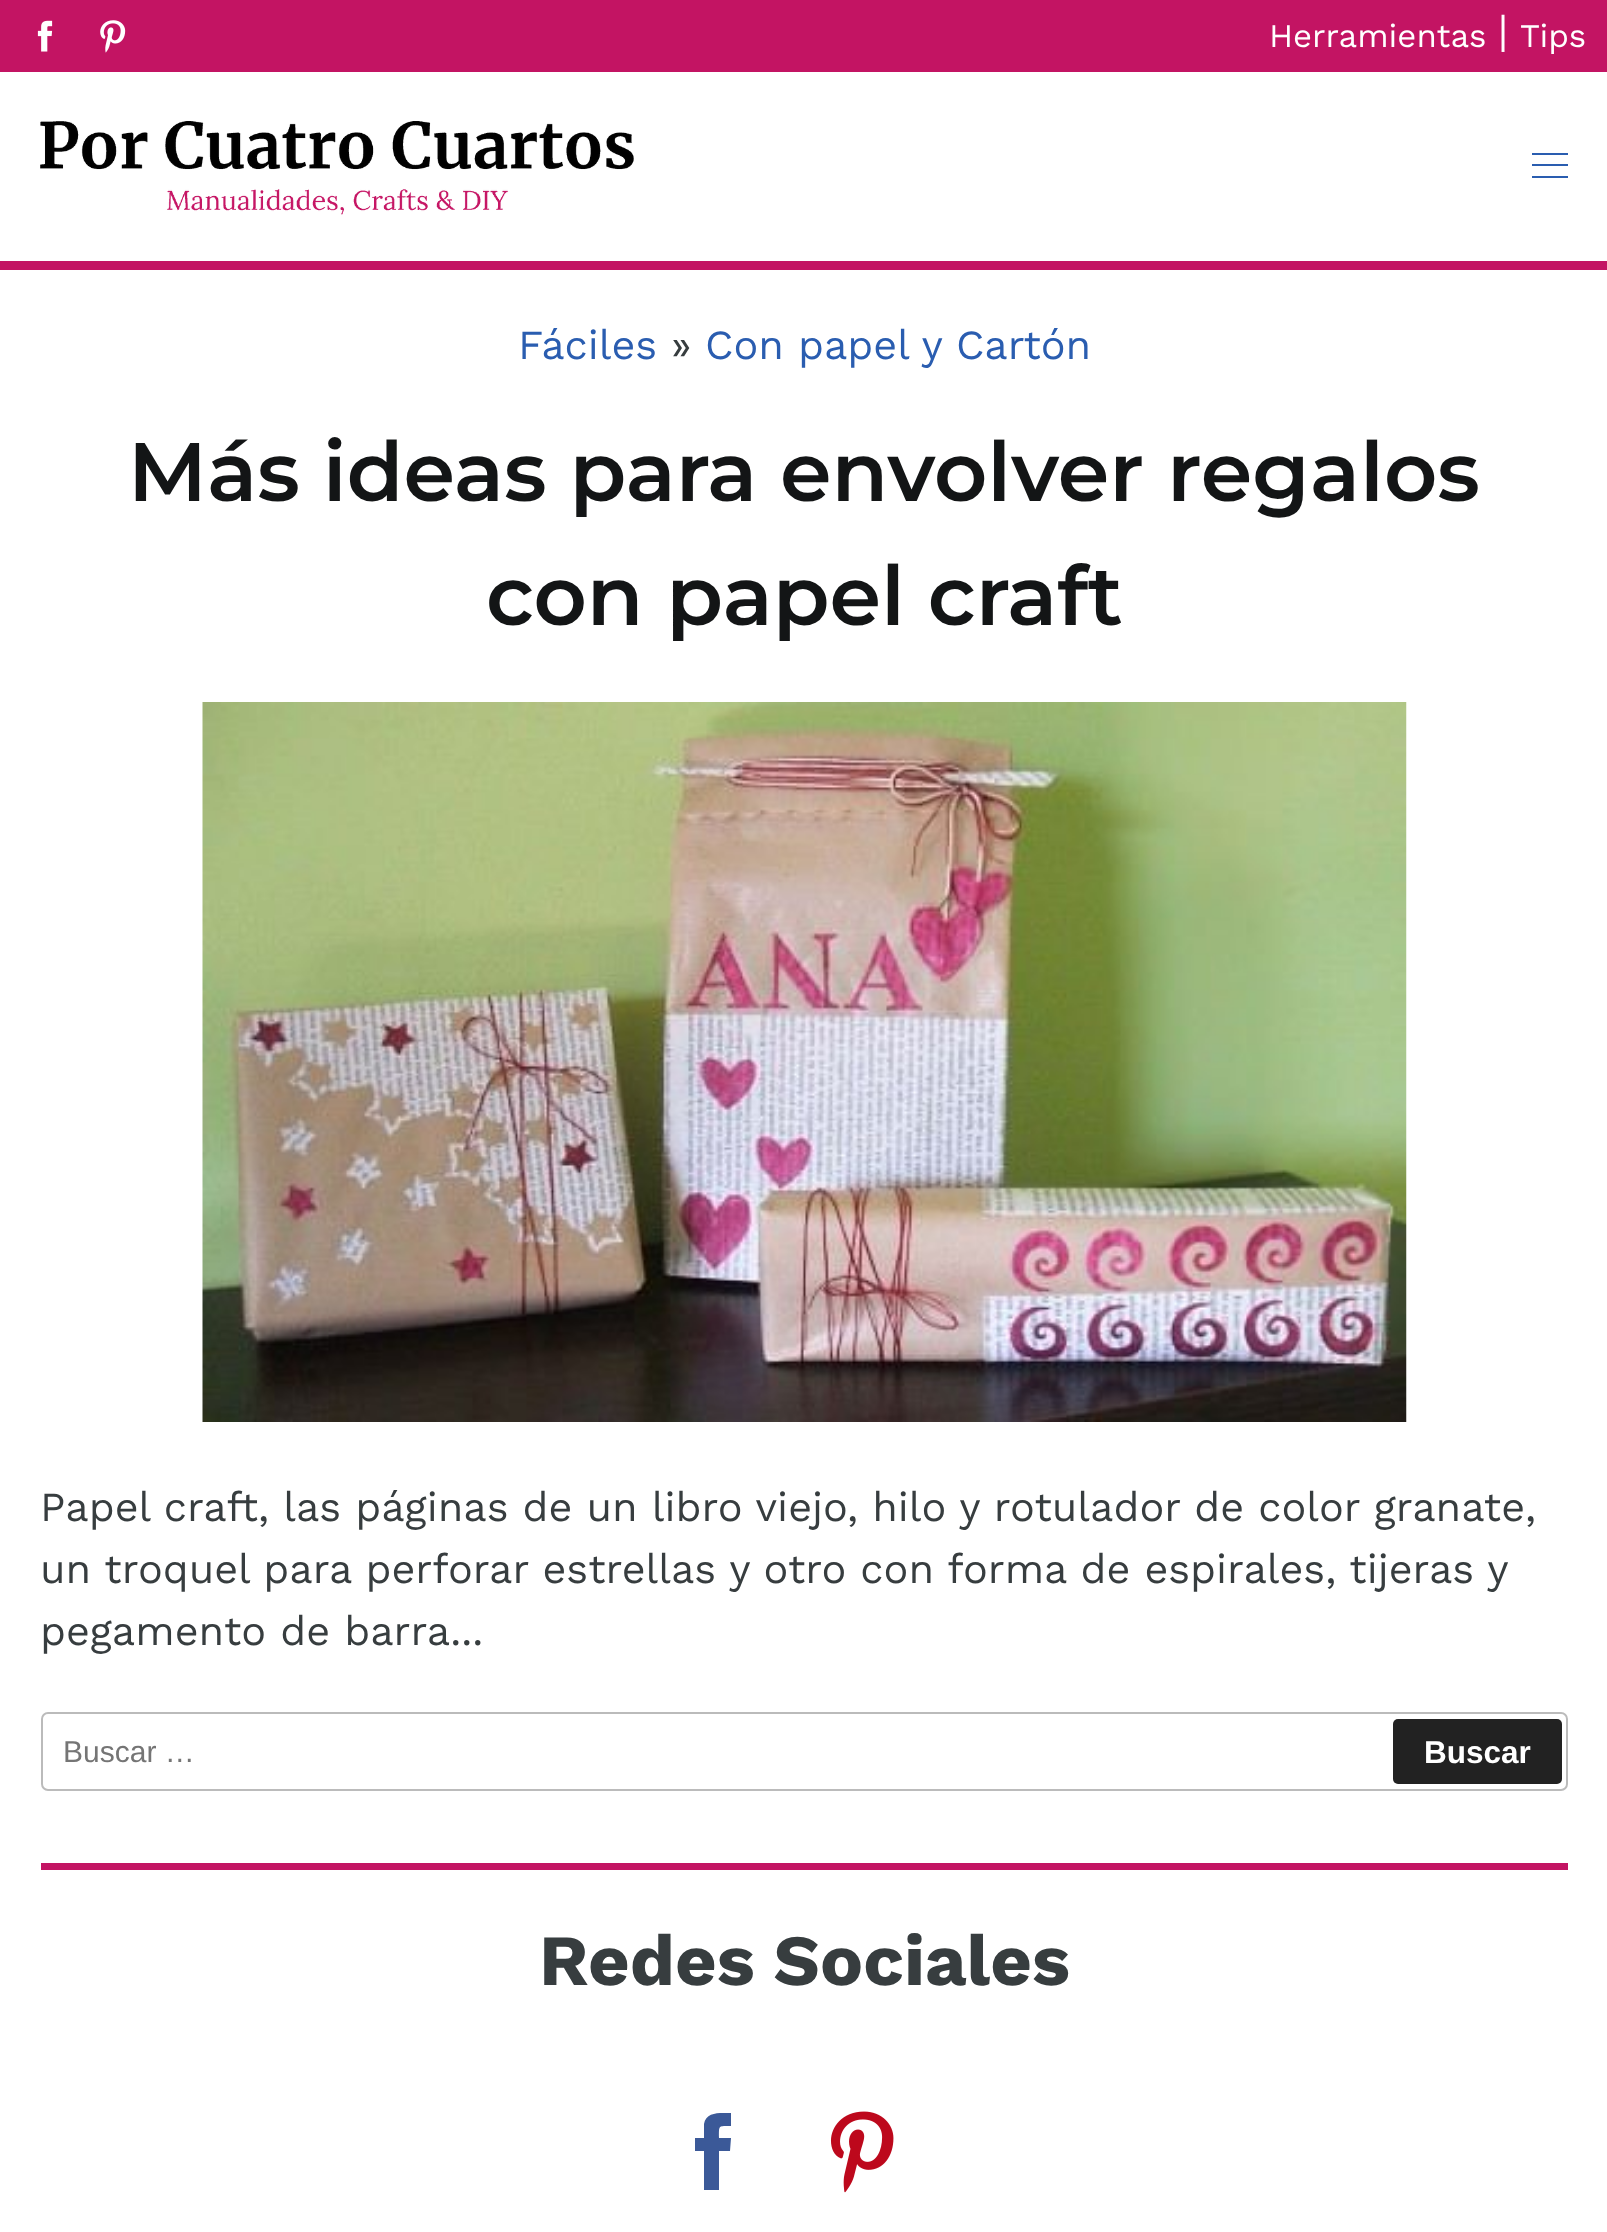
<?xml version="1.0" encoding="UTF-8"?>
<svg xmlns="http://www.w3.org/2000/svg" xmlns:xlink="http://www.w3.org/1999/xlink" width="1607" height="2232">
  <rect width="100%" height="100%" fill="#ffffff" />
  <rect y="261" width="1607" height="9" fill="#c31463" />
  <rect width="1607" height="72" fill="#c31463" />
  <image x="37" y="20" width="16" height="32" xlink:href="image1.png" />
  <image x="100" y="20" width="26" height="33" xlink:href="image2.png" />
  <image x="40" y="121" width="594" height="94" xlink:href="image3.png" />
  <rect x="1532" y="153" width="36" height="2" fill="#2a5db0" />
  <rect x="1532" y="164" width="36" height="2" fill="#2a5db0" />
  <rect x="1532" y="176" width="36" height="2" fill="#2a5db0" />
  <image x="202" y="702" width="1205" height="720" xlink:href="image4.png" />
  <rect x="42" y="1713" width="1525" height="77" rx="6" fill="none" stroke="#bbbbbb" stroke-width="2" />
  <rect x="1393" y="1719" width="169" height="65" rx="5" fill="#222222" />
  <rect x="41" y="1863" width="1527" height="7" fill="#c31463" />
  <path d="M 704 2138 h -9 v 13 h 9 v 39 h 15 v -39 h 11 l 1 -13 h -12 c 0 -13 -1 -12 12 -12 v -13 c -10 0 -25 -2 -27 11 z" fill="#3b5998" />
  <image x="830" y="2111" width="64" height="82" xlink:href="image5.png" />
  <text x="1269" y="47" style="font-family: Work Sans; font-size: 33px; fill: #ffffff">Herramientas</text>
  <text x="1498" y="45" style="font-family: Work Sans; font-size: 41.4px; fill: #ffffff">|</text>
  <text x="1520" y="47" style="font-family: Work Sans; font-size: 33px; fill: #ffffff">Tips</text>
  <text x="518" y="359" style="font-family: Work Sans; font-size: 41.4px; fill: #2a5db0">Fáciles</text>
  <text x="671" y="359" style="font-family: Work Sans; font-size: 41.4px; fill: #373d3f">»</text>
  <text x="705" y="359" style="font-family: Work Sans; font-size: 41.4px; fill: #2a5db0">Con papel y Cartón</text>
  <text x="128" y="501" style="font-family: Montserrat; font-size: 82.75px; font-weight: 600; fill: #131516">Más ideas para envolver regalos</text>
  <text x="486" y="625" style="font-family: Montserrat; font-size: 82.75px; font-weight: 600; fill: #131516">con papel craft</text>
  <text x="40" y="1521" style="font-family: Work Sans; font-size: 41.4px; fill: #373d3f">Papel craft, las páginas de un libro viejo, hilo y rotulador de color granate,</text>
  <text x="40" y="1583" word-spacing="-0.1" style="font-family: Work Sans; font-size: 41.4px; fill: #373d3f">un troquel para perforar estrellas y otro con forma de espirales, tijeras y</text>
  <text x="40" y="1645" style="font-family: Work Sans; font-size: 41.4px; fill: #373d3f">pegamento de barra...</text>
  <text x="63" y="1762" style="font-family: Liberation Sans; font-size: 30px; fill: #757575">Buscar …</text>
  <text x="1424" y="1763" style="font-family: Liberation Sans; font-size: 31.5px; font-weight: bold; fill: #ffffff">Buscar</text>
  <text x="539" y="1985" word-spacing="-2" style="font-family: Work Sans; font-size: 72px; font-weight: bold; fill: #373d3f">Redes Sociales</text>
</svg>
